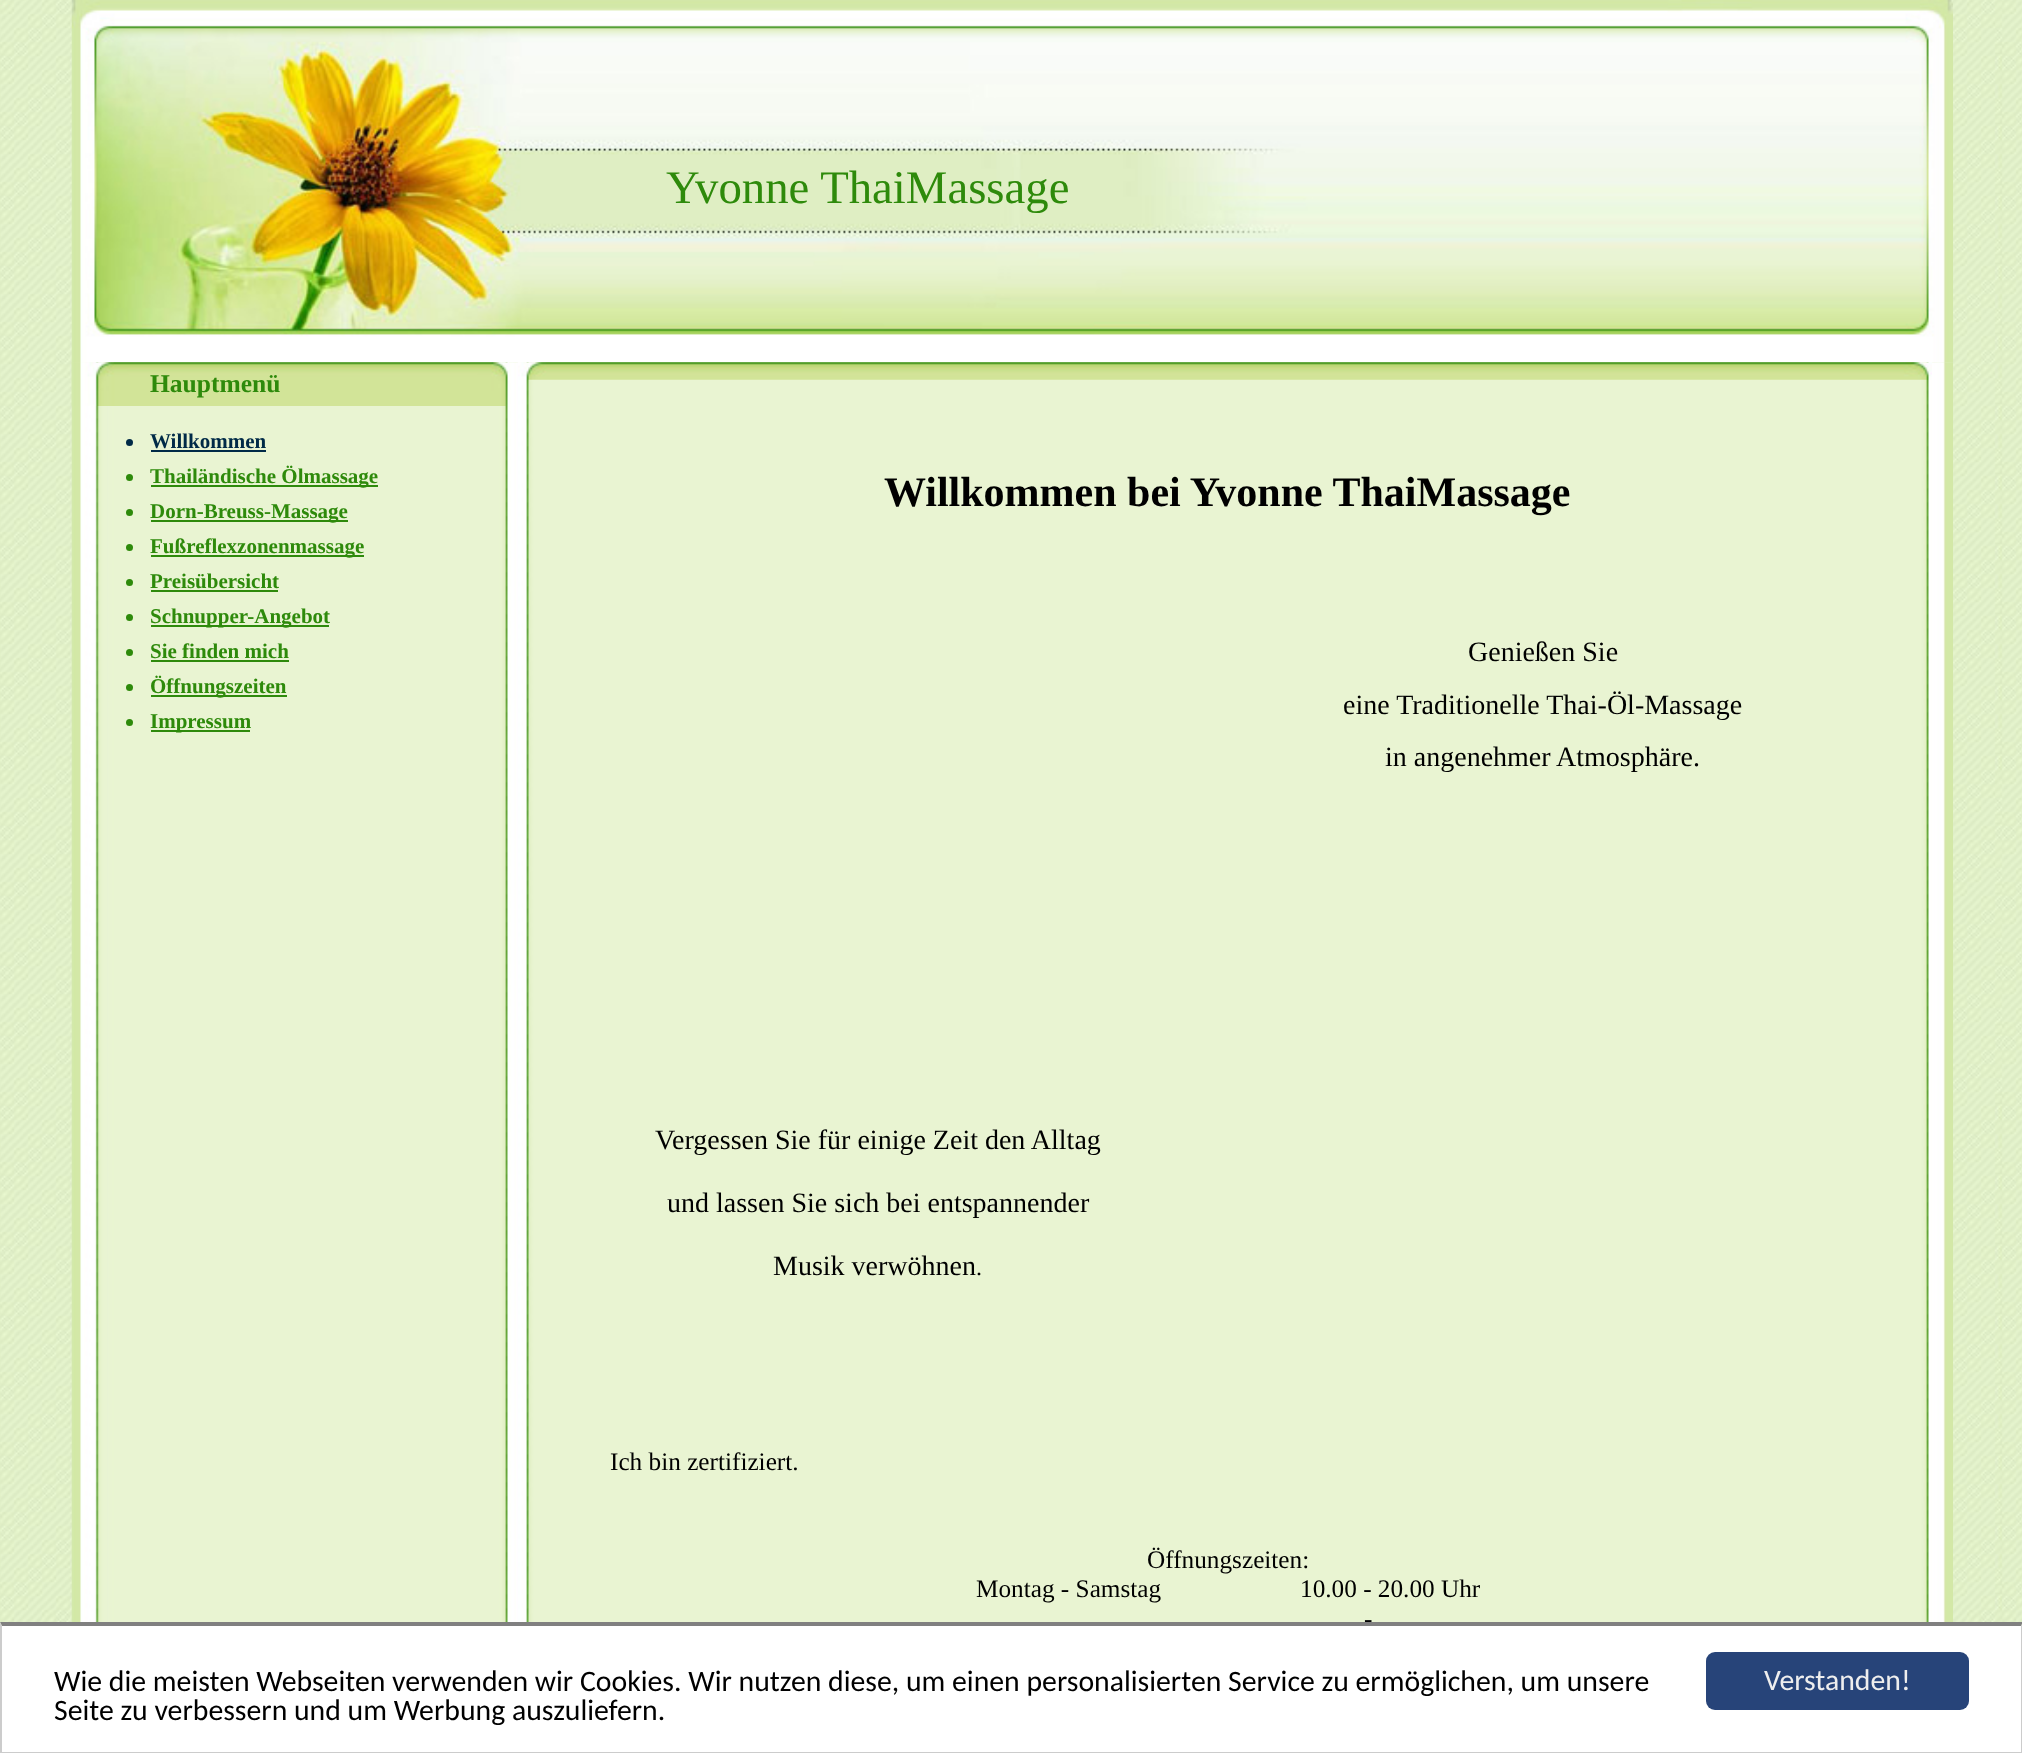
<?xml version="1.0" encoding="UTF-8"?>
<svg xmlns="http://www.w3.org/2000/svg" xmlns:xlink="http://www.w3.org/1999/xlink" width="2022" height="1753">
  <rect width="100%" height="100%" fill="#ffffff" />
  <image x="0" y="0" width="2022" height="1626" xlink:href="image1.png" />
  <image x="71" y="0" width="1882" height="363" xlink:href="image2.png" />
  <image x="71" y="362" width="1882" height="1260" xlink:href="image3.png" />
  <image x="71" y="362" width="438" height="44" xlink:href="image4.png" />
  <circle cx="129.5" cy="442.5" r="3.5" fill="#002a47" />
  <rect x="151" y="450" width="115" height="2" fill="#002a47" />
  <circle cx="129.5" cy="477.5" r="3.5" fill="#2e8a0b" />
  <rect x="151" y="485" width="227" height="2" fill="#2e8a0b" />
  <circle cx="129.5" cy="512.5" r="3.5" fill="#2e8a0b" />
  <rect x="151" y="520" width="197" height="2" fill="#2e8a0b" />
  <circle cx="129.5" cy="547.5" r="3.5" fill="#2e8a0b" />
  <rect x="151" y="555" width="213" height="2" fill="#2e8a0b" />
  <circle cx="129.5" cy="582.5" r="3.5" fill="#2e8a0b" />
  <rect x="151" y="590" width="127" height="2" fill="#2e8a0b" />
  <circle cx="129.5" cy="617.5" r="3.5" fill="#2e8a0b" />
  <rect x="151" y="625" width="178" height="2" fill="#2e8a0b" />
  <circle cx="129.5" cy="652.5" r="3.5" fill="#2e8a0b" />
  <rect x="151" y="660" width="138" height="2" fill="#2e8a0b" />
  <circle cx="129.5" cy="687.5" r="3.5" fill="#2e8a0b" />
  <rect x="151" y="695" width="136" height="2" fill="#2e8a0b" />
  <circle cx="129.5" cy="722.5" r="3.5" fill="#2e8a0b" />
  <rect x="151" y="730" width="99" height="2" fill="#2e8a0b" />
  <image x="518" y="362" width="1414" height="18" xlink:href="image5.png" />
  <rect x="1706" y="1652" width="263" height="58" rx="9" fill="#274479" />
  <text x="666" y="203" style="font-family: Liberation Serif; font-size: 46.75px; fill: #2e8a0b">Yvonne ThaiMassage</text>
  <text x="150" y="392" style="font-family: Liberation Serif; font-size: 25.5px; font-weight: bold; fill: #2e8a0b">Hauptmenü</text>
  <text x="150" y="448" style="font-family: Liberation Serif; font-size: 21px; font-weight: bold; fill: #002a47">Willkommen</text>
  <text x="150" y="483" style="font-family: Liberation Serif; font-size: 21px; font-weight: bold; fill: #2e8a0b">Thailändische Ölmassage</text>
  <text x="150" y="518" style="font-family: Liberation Serif; font-size: 21px; font-weight: bold; fill: #2e8a0b">Dorn-Breuss-Massage</text>
  <text x="150" y="553" style="font-family: Liberation Serif; font-size: 21px; font-weight: bold; fill: #2e8a0b">Fußreflexzonenmassage</text>
  <text x="150" y="588" style="font-family: Liberation Serif; font-size: 21px; font-weight: bold; fill: #2e8a0b">Preisübersicht</text>
  <text x="150" y="623" style="font-family: Liberation Serif; font-size: 21px; font-weight: bold; fill: #2e8a0b">Schnupper-Angebot</text>
  <text x="150" y="658" style="font-family: Liberation Serif; font-size: 21px; font-weight: bold; fill: #2e8a0b">Sie finden mich</text>
  <text x="150" y="693" style="font-family: Liberation Serif; font-size: 21px; font-weight: bold; fill: #2e8a0b">Öffnungszeiten</text>
  <text x="150" y="728" style="font-family: Liberation Serif; font-size: 21px; font-weight: bold; fill: #2e8a0b">Impressum</text>
  <text x="884" y="506" style="font-family: Liberation Serif; font-size: 42px; font-weight: bold; fill: #000000">Willkommen bei Yvonne ThaiMassage</text>
  <text x="1468" y="661" style="font-family: Liberation Serif; font-size: 28px; fill: #000000">Genießen Sie</text>
  <text x="1343" y="714" style="font-family: Liberation Serif; font-size: 28px; fill: #000000">eine Traditionelle Thai-Öl-Massage</text>
  <text x="1385" y="766" style="font-family: Liberation Serif; font-size: 28px; fill: #000000">in angenehmer Atmosphäre.</text>
  <text x="655" y="1149" style="font-family: Liberation Serif; font-size: 28px; fill: #000000">Vergessen Sie für einige Zeit den Alltag</text>
  <text x="667" y="1212" style="font-family: Liberation Serif; font-size: 28px; fill: #000000">und lassen Sie sich bei entspannender</text>
  <text x="773" y="1275" style="font-family: Liberation Serif; font-size: 28px; fill: #000000">Musik verwöhnen</text>
  <text x="976" y="1275" style="font-family: Liberation Serif; font-size: 24px; fill: #000000">.</text>
  <text x="610" y="1470" style="font-family: Liberation Serif; font-size: 25.25px; fill: #000000">Ich bin zertifiziert.</text>
  <text x="1147" y="1568" style="font-family: Liberation Serif; font-size: 25.25px; fill: #000000">Öffnungszeiten:</text>
  <text x="976" y="1597" style="font-family: Liberation Serif; font-size: 25.25px; fill: #000000" xml:space="preserve">Montag - Samstag                      10.00 - 20.00 Uhr</text>
  <text x="1364" y="1627" style="font-family: Liberation Serif; font-size: 25.25px; fill: #000000">-</text>
  <path d="M 0 1622 h 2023 l -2 4 h -2019 z" fill="#808080" />
  <path d="M 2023 1622 v 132 l -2 -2 v -126 z" fill="#cccccc" />
  <rect y="1752" width="2022" height="1" fill="#cccccc" />
  <path d="M 0 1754 v -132 l 2 4 v 126 z" fill="#cccccc" />
  <text x="54" y="1691" style="font-family: Carlito; font-size: 29.75px; fill: #000000">Wie die meisten Webseiten verwenden wir Cookies. Wir nutzen diese, um einen personalisierten Service zu ermöglichen, um unsere</text>
  <text x="54" y="1720" style="font-family: Carlito; font-size: 29.75px; fill: #000000">Seite zu verbessern und um Werbung auszuliefern.</text>
  <text x="1764" y="1690" style="font-family: Carlito; font-size: 29.75px; fill: #eeeeee">Verstanden!</text>
</svg>
